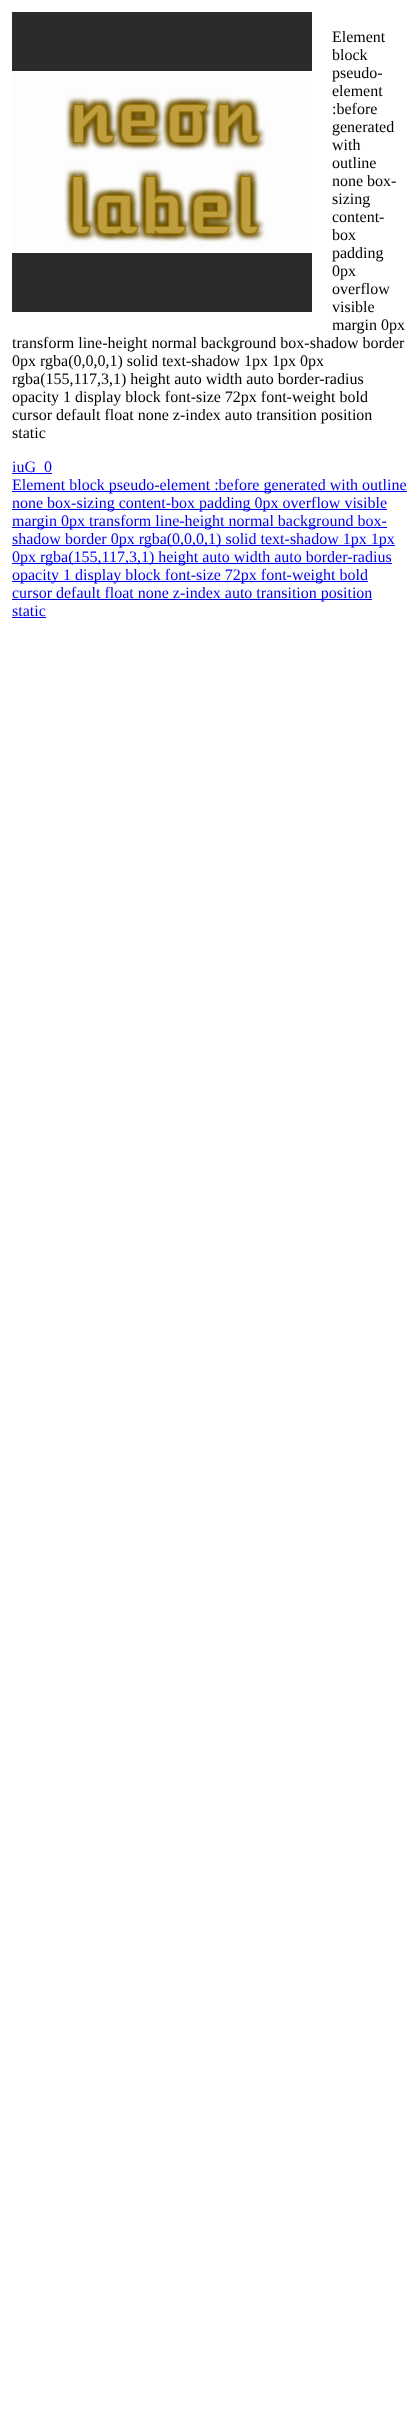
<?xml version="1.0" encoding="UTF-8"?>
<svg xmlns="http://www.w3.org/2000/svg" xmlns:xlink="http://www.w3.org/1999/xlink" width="415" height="2415">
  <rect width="100%" height="100%" fill="#ffffff" />
  <image x="12" y="12" width="300" height="300" xlink:href="image1.png" />
  <rect x="12" y="473" width="40" height="1" fill="#0000ee" />
  <rect x="12" y="491" width="395" height="1" fill="#0000ee" />
  <rect x="12" y="509" width="375" height="1" fill="#0000ee" />
  <rect x="12" y="527" width="375" height="1" fill="#0000ee" />
  <rect x="12" y="545" width="383" height="1" fill="#0000ee" />
  <rect x="12" y="563" width="380" height="1" fill="#0000ee" />
  <rect x="12" y="581" width="356" height="1" fill="#0000ee" />
  <rect x="12" y="599" width="360" height="1" fill="#0000ee" />
  <rect x="12" y="617" width="34" height="1" fill="#0000ee" />
  <text x="332" y="42" style="font-family: Liberation Serif; font-size: 16px; fill: #000000">Element</text>
  <text x="332" y="60" style="font-family: Liberation Serif; font-size: 16px; fill: #000000">block</text>
  <text x="332" y="78" style="font-family: Liberation Serif; font-size: 16px; fill: #000000">pseudo-</text>
  <text x="332" y="96" style="font-family: Liberation Serif; font-size: 16px; fill: #000000">element</text>
  <text x="332" y="114" style="font-family: Liberation Serif; font-size: 16px; fill: #000000">:before</text>
  <text x="332" y="132" style="font-family: Liberation Serif; font-size: 16px; fill: #000000">generated</text>
  <text x="332" y="150" style="font-family: Liberation Serif; font-size: 16px; fill: #000000">with</text>
  <text x="332" y="168" style="font-family: Liberation Serif; font-size: 16px; fill: #000000">outline</text>
  <text x="332" y="186" style="font-family: Liberation Serif; font-size: 16px; fill: #000000">none box-</text>
  <text x="332" y="204" style="font-family: Liberation Serif; font-size: 16px; fill: #000000">sizing</text>
  <text x="332" y="222" style="font-family: Liberation Serif; font-size: 16px; fill: #000000">content-</text>
  <text x="332" y="240" style="font-family: Liberation Serif; font-size: 16px; fill: #000000">box</text>
  <text x="332" y="258" style="font-family: Liberation Serif; font-size: 16px; fill: #000000">padding</text>
  <text x="332" y="276" style="font-family: Liberation Serif; font-size: 16px; fill: #000000">0px</text>
  <text x="332" y="294" style="font-family: Liberation Serif; font-size: 16px; fill: #000000">overflow</text>
  <text x="332" y="312" style="font-family: Liberation Serif; font-size: 16px; fill: #000000">visible</text>
  <text x="332" y="330" style="font-family: Liberation Serif; font-size: 16px; fill: #000000">margin 0px</text>
  <text x="12" y="348" style="font-family: Liberation Serif; font-size: 16px; fill: #000000">transform line-height normal background box-shadow border</text>
  <text x="12" y="366" style="font-family: Liberation Serif; font-size: 16px; fill: #000000">0px rgba(0,0,0,1) solid text-shadow 1px 1px 0px</text>
  <text x="12" y="384" style="font-family: Liberation Serif; font-size: 16px; fill: #000000">rgba(155,117,3,1) height auto width auto border-radius</text>
  <text x="12" y="402" style="font-family: Liberation Serif; font-size: 16px; fill: #000000">opacity 1 display block font-size 72px font-weight bold</text>
  <text x="12" y="420" style="font-family: Liberation Serif; font-size: 16px; fill: #000000">cursor default float none z-index auto transition position</text>
  <text x="12" y="438" style="font-family: Liberation Serif; font-size: 16px; fill: #000000">static</text>
  <text x="12" y="472" style="font-family: Liberation Serif; font-size: 16px; fill: #0000ee">iuG_0</text>
  <text x="12" y="490" style="font-family: Liberation Serif; font-size: 16px; fill: #0000ee">Element block pseudo-element :before generated with outline</text>
  <text x="12" y="508" style="font-family: Liberation Serif; font-size: 16px; fill: #0000ee">none box-sizing content-box padding 0px overflow visible</text>
  <text x="12" y="526" style="font-family: Liberation Serif; font-size: 16px; fill: #0000ee">margin 0px transform line-height normal background box-</text>
  <text x="12" y="544" style="font-family: Liberation Serif; font-size: 16px; fill: #0000ee">shadow border 0px rgba(0,0,0,1) solid text-shadow 1px 1px</text>
  <text x="12" y="562" style="font-family: Liberation Serif; font-size: 16px; fill: #0000ee">0px rgba(155,117,3,1) height auto width auto border-radius</text>
  <text x="12" y="580" style="font-family: Liberation Serif; font-size: 16px; fill: #0000ee">opacity 1 display block font-size 72px font-weight bold</text>
  <text x="12" y="598" style="font-family: Liberation Serif; font-size: 16px; fill: #0000ee">cursor default float none z-index auto transition position</text>
  <text x="12" y="616" style="font-family: Liberation Serif; font-size: 16px; fill: #0000ee">static</text>
</svg>
